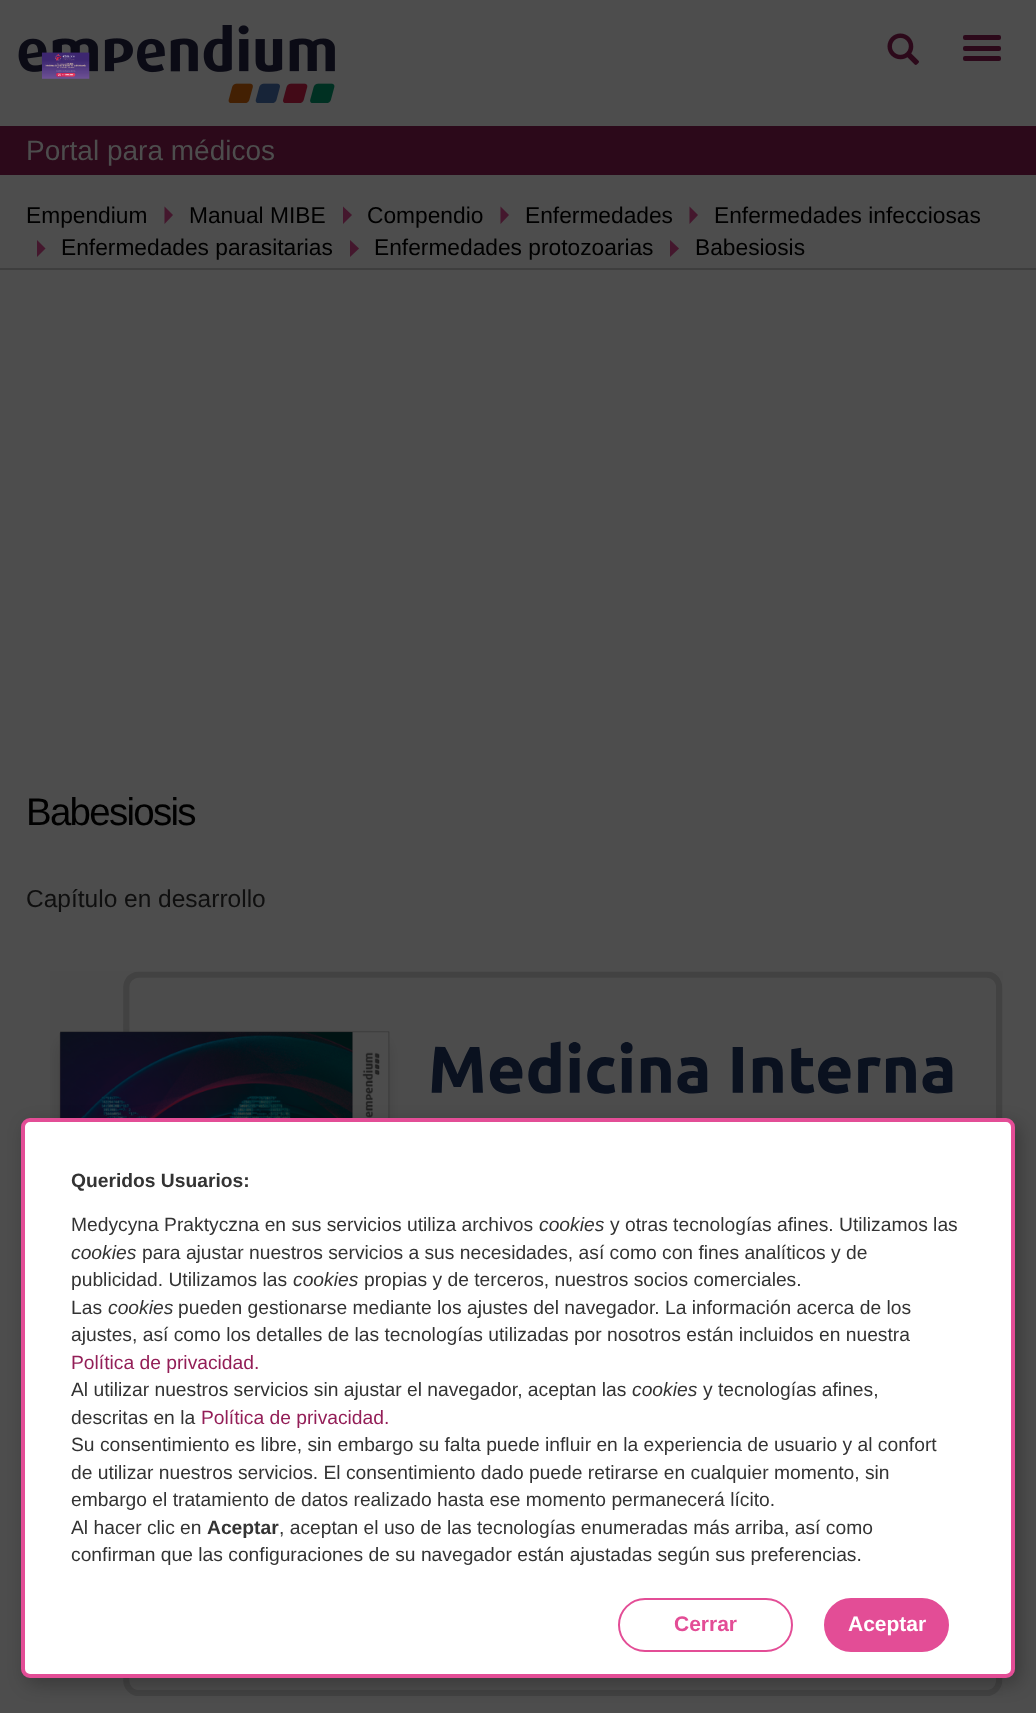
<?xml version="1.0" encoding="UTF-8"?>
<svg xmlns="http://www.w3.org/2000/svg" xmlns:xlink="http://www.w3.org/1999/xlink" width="1036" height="1713">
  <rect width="100%" height="100%" fill="#4d4d4d" />
  <image x="887" y="33" width="32" height="32" xlink:href="image1.png" />
  <rect x="963" y="35" width="38" height="5" rx="2" fill="#2c091a" />
  <rect x="963" y="46" width="38" height="5" rx="2" fill="#2c091a" />
  <rect x="963" y="56" width="38" height="5" rx="2" fill="#2c091a" />
  <image x="18" y="25" width="317" height="78" xlink:href="image2.png" />
  <rect y="126" width="1036" height="49" fill="#2c091a" />
  <rect y="268" width="1036" height="2" fill="#3e3e3e" />
  <path d="M 164.5 224 v -17.5 l 8.5 8.5 z" fill="#44172d" />
  <path d="M 343 224 v -17.5 l 9 8.5 z" fill="#44172d" />
  <path d="M 500.5 224 v -17.5 l 8.5 8.5 z" fill="#44172d" />
  <path d="M 689.5 224 v -17.5 l 8.5 8.5 z" fill="#44172d" />
  <path d="M 37 257 v -17 l 8.5 8.5 z" fill="#44172d" />
  <path d="M 350 257 v -17 l 9 8.5 z" fill="#44172d" />
  <path d="M 670 257 v -17 l 9 8.5 z" fill="#44172d" />
  <image x="41" y="52" width="49" height="27" xlink:href="image3.png" />
  <image x="50" y="971" width="953" height="725" xlink:href="image4.png" />
  <rect x="26" y="1124" width="994" height="560" rx="9" fill="#000000" fill-opacity="0.25" filter="blur(9px)" />
  <rect x="23" y="1120" width="990" height="556" rx="7" fill="#ffffff" stroke="#e34d96" stroke-width="4" />
  <rect x="619" y="1599" width="173" height="52" rx="26" fill="none" stroke="#e34d96" stroke-width="2" />
  <rect x="825" y="1599" width="123" height="52" rx="26" fill="#e34d96" stroke="#e34d96" stroke-width="2" />
  <text x="26" y="160" style="font-family: Liberation Sans; font-size: 28px; fill: #4d4d4d">Portal para médicos</text>
  <text x="26" y="223" style="font-family: Liberation Sans; font-size: 22.75px; fill: #000000">Empendium</text>
  <text x="189" y="223" style="font-family: Liberation Sans; font-size: 22.75px; fill: #000000">Manual MIBE</text>
  <text x="367" y="223" style="font-family: Liberation Sans; font-size: 22.75px; fill: #000000">Compendio</text>
  <text x="525" y="223" style="font-family: Liberation Sans; font-size: 22.75px; fill: #000000">Enfermedades</text>
  <text x="714" y="223" style="font-family: Liberation Sans; font-size: 22.75px; fill: #000000">Enfermedades infecciosas</text>
  <text x="61" y="255" style="font-family: Liberation Sans; font-size: 22.75px; fill: #000000">Enfermedades parasitarias</text>
  <text x="374" y="255" style="font-family: Liberation Sans; font-size: 22.75px; fill: #000000">Enfermedades protozoarias</text>
  <text x="695" y="255" style="font-family: Liberation Sans; font-size: 22.75px; fill: #000000">Babesiosis</text>
  <text x="26" y="825" style="font-family: Liberation Sans; font-size: 38.5px; letter-spacing: -1.75px; fill: #000000">Babesiosis</text>
  <text x="26" y="907" style="font-family: Liberation Sans; font-size: 24.5px; fill: #0f0f0f">Capítulo en desarrollo</text>
  <text x="71" y="1187" style="font-family: Liberation Sans; font-size: 19.25px; font-weight: bold; fill: #333333">Queridos Usuarios:</text>
  <text x="71" y="1231" style="font-family: Liberation Sans; font-size: 19.25px; fill: #333333">Medycyna Praktyczna en sus servicios utiliza archivos</text>
  <text x="539" y="1231" style="font-family: Liberation Sans; font-size: 19.25px; font-style: italic; fill: #333333">cookies</text>
  <text x="610" y="1231" style="font-family: Liberation Sans; font-size: 19.25px; fill: #333333">y otras tecnologías afines. Utilizamos las</text>
  <text x="71" y="1259" style="font-family: Liberation Sans; font-size: 19.25px; font-style: italic; fill: #333333">cookies</text>
  <text x="142" y="1259" style="font-family: Liberation Sans; font-size: 19.25px; fill: #333333">para ajustar nuestros servicios a sus necesidades, así como con fines analíticos y de</text>
  <text x="71" y="1286" style="font-family: Liberation Sans; font-size: 19.25px; fill: #333333">publicidad. Utilizamos las</text>
  <text x="293" y="1286" style="font-family: Liberation Sans; font-size: 19.25px; font-style: italic; fill: #333333">cookies</text>
  <text x="364" y="1286" style="font-family: Liberation Sans; font-size: 19.25px; fill: #333333">propias y de terceros, nuestros socios comerciales.</text>
  <text x="71" y="1314" style="font-family: Liberation Sans; font-size: 19.25px; fill: #333333">Las</text>
  <text x="108" y="1314" style="font-family: Liberation Sans; font-size: 19.25px; font-style: italic; fill: #333333">cookies</text>
  <text x="178" y="1314" style="font-family: Liberation Sans; font-size: 19.25px; fill: #333333">pueden gestionarse mediante los ajustes del navegador. La información acerca de los</text>
  <text x="71" y="1341" style="font-family: Liberation Sans; font-size: 19.25px; fill: #333333">ajustes, así como los detalles de las tecnologías utilizadas por nosotros están incluidos en nuestra</text>
  <text x="71" y="1369" style="font-family: Liberation Sans; font-size: 19.25px; fill: #931e57">Política de privacidad.</text>
  <text x="71" y="1396" style="font-family: Liberation Sans; font-size: 19.25px; fill: #333333">Al utilizar nuestros servicios sin ajustar el navegador, aceptan las</text>
  <text x="632" y="1396" style="font-family: Liberation Sans; font-size: 19.25px; font-style: italic; fill: #333333">cookies</text>
  <text x="703" y="1396" style="font-family: Liberation Sans; font-size: 19.25px; fill: #333333">y tecnologías afines,</text>
  <text x="71" y="1424" style="font-family: Liberation Sans; font-size: 19.25px; fill: #333333">descritas en la</text>
  <text x="201" y="1424" style="font-family: Liberation Sans; font-size: 19.25px; fill: #931e57">Política de privacidad.</text>
  <text x="71" y="1451" style="font-family: Liberation Sans; font-size: 19.25px; fill: #333333">Su consentimiento es libre, sin embargo su falta puede influir en la experiencia de usuario y al confort</text>
  <text x="71" y="1479" style="font-family: Liberation Sans; font-size: 19.25px; fill: #333333">de utilizar nuestros servicios. El consentimiento dado puede retirarse en cualquier momento, sin</text>
  <text x="71" y="1506" style="font-family: Liberation Sans; font-size: 19.25px; fill: #333333">embargo el tratamiento de datos realizado hasta ese momento permanecerá lícito.</text>
  <text x="71" y="1534" style="font-family: Liberation Sans; font-size: 19.25px; fill: #333333">Al hacer clic en</text>
  <text x="207" y="1534" style="font-family: Liberation Sans; font-size: 19.25px; font-weight: bold; fill: #333333">Aceptar</text>
  <text x="279" y="1534" style="font-family: Liberation Sans; font-size: 19.25px; fill: #333333">, aceptan el uso de las tecnologías enumeradas más arriba, así como</text>
  <text x="71" y="1561" style="font-family: Liberation Sans; font-size: 19.25px; fill: #333333">confirman que las configuraciones de su navegador están ajustadas según sus preferencias.</text>
  <text x="674" y="1631" style="font-family: Liberation Sans; font-size: 21px; font-weight: bold; fill: #e34d96">Cerrar</text>
  <text x="848" y="1631" style="font-family: Liberation Sans; font-size: 21px; font-weight: bold; fill: #ffffff">Aceptar</text>
</svg>
